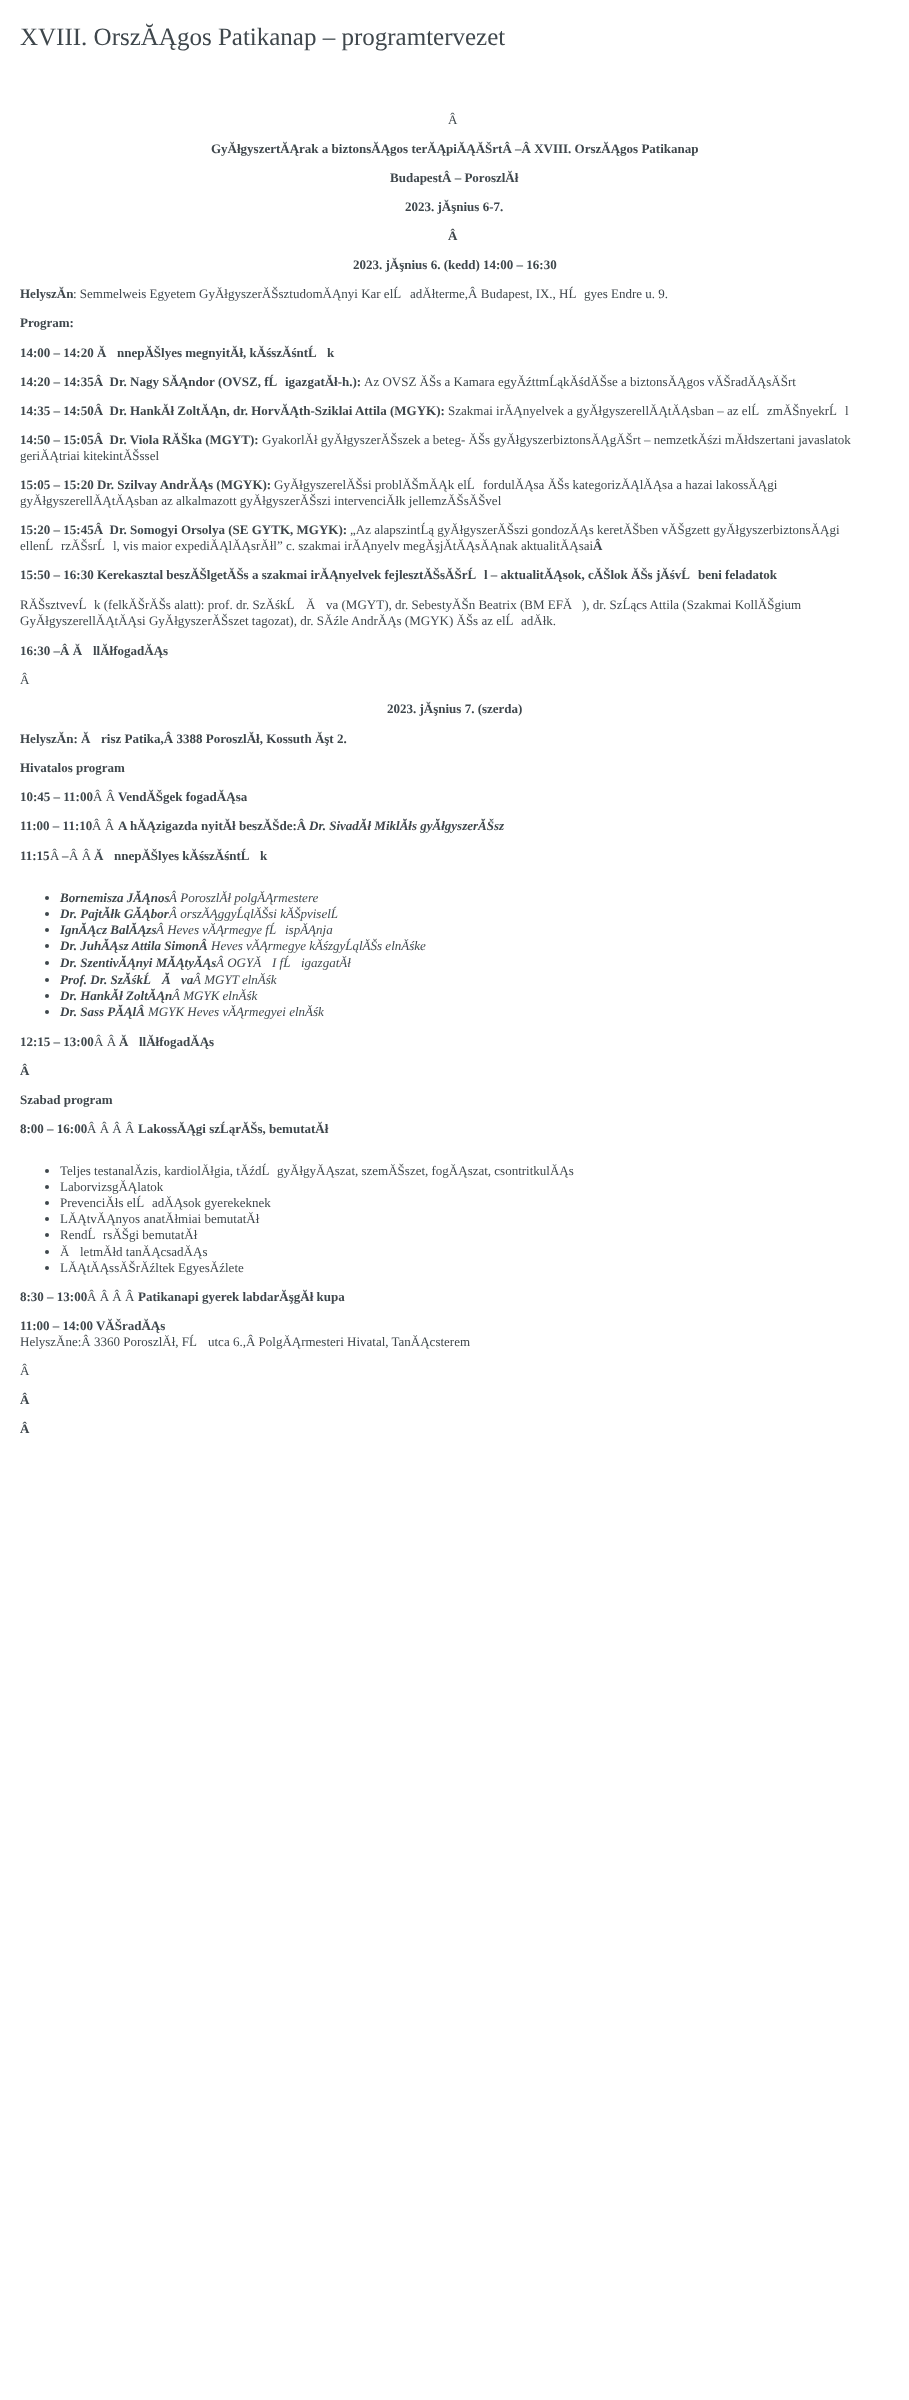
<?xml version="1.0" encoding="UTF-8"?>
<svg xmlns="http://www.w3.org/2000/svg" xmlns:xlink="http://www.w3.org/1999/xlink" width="909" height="2400">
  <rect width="100%" height="100%" fill="#ffffff" />
  <circle cx="47" cy="898" r="2" fill="#3f474c" />
  <circle cx="47" cy="914" r="2" fill="#3f474c" />
  <circle cx="47" cy="930" r="2" fill="#3f474c" />
  <circle cx="47" cy="946" r="2" fill="#3f474c" />
  <circle cx="47" cy="963" r="2" fill="#3f474c" />
  <circle cx="47" cy="980" r="2" fill="#3f474c" />
  <circle cx="47" cy="996" r="2" fill="#3f474c" />
  <circle cx="47" cy="1012" r="2" fill="#3f474c" />
  <circle cx="47" cy="1171" r="2" fill="#3f474c" />
  <circle cx="47" cy="1187" r="2" fill="#3f474c" />
  <circle cx="47" cy="1203" r="2" fill="#3f474c" />
  <circle cx="47" cy="1219" r="2" fill="#3f474c" />
  <circle cx="47" cy="1235" r="2" fill="#3f474c" />
  <circle cx="47" cy="1252" r="2" fill="#3f474c" />
  <circle cx="47" cy="1268" r="2" fill="#3f474c" />
  <text x="20" y="45" style="font-family: Liberation Serif; font-size: 25px; fill: #3f474c">XVIII. OrszĂĄgos Patikanap – programtervezet</text>
  <text x="448" y="124" style="font-family: Liberation Serif; font-size: 13px; fill: #3f474c">Â</text>
  <text x="211" y="153" style="font-family: Liberation Serif; font-size: 13px; font-weight: bold; fill: #3f474c">GyĂłgyszertĂĄrak a biztonsĂĄgos terĂĄpiĂĄĂŠrtÂ –Â XVIII. OrszĂĄgos Patikanap</text>
  <text x="390" y="182" style="font-family: Liberation Serif; font-size: 13px; font-weight: bold; fill: #3f474c">BudapestÂ – PoroszlĂł</text>
  <text x="405" y="211" style="font-family: Liberation Serif; font-size: 13px; font-weight: bold; fill: #3f474c">2023. jĂşnius 6-7.</text>
  <text x="448" y="240" style="font-family: Liberation Serif; font-size: 13px; font-weight: bold; fill: #3f474c">Â</text>
  <text x="353" y="269" style="font-family: Liberation Serif; font-size: 13px; font-weight: bold; fill: #3f474c">2023. jĂşnius 6. (kedd) 14:00 – 16:30</text>
  <text x="20" y="298" style="font-family: Liberation Serif; font-size: 13px; font-weight: bold; fill: #3f474c">HelyszĂn</text>
  <text x="73" y="298" style="font-family: Liberation Serif; font-size: 13px; fill: #3f474c">: Semmelweis Egyetem GyĂłgyszerĂŠsztudomĂĄnyi Kar elĹ</text>
  <text x="410" y="298" style="font-family: Liberation Serif; font-size: 13px; fill: #3f474c">adĂłterme,Â Budapest, IX., HĹ</text>
  <text x="584" y="298" style="font-family: Liberation Serif; font-size: 13px; fill: #3f474c">gyes Endre u. 9.</text>
  <text x="20" y="327" style="font-family: Liberation Serif; font-size: 13px; font-weight: bold; fill: #3f474c">Program:</text>
  <text x="20" y="357" style="font-family: Liberation Serif; font-size: 13px; font-weight: bold; fill: #3f474c">14:00 – 14:20 Ă</text>
  <text x="117" y="357" style="font-family: Liberation Serif; font-size: 13px; font-weight: bold; fill: #3f474c">nnepĂŠlyes megnyitĂł, kĂśszĂśntĹ</text>
  <text x="327" y="357" style="font-family: Liberation Serif; font-size: 13px; font-weight: bold; fill: #3f474c">k</text>
  <text x="20" y="386" style="font-family: Liberation Serif; font-size: 13px; font-weight: bold; fill: #3f474c" xml:space="preserve">14:20 – 14:35Â  Dr. Nagy SĂĄndor (OVSZ, fĹ</text>
  <text x="285" y="386" style="font-family: Liberation Serif; font-size: 13px; font-weight: bold; fill: #3f474c">igazgatĂł-h.):</text>
  <text x="364" y="386" style="font-family: Liberation Serif; font-size: 13px; fill: #3f474c">Az OVSZ ĂŠs a Kamara egyĂźttmĹąkĂśdĂŠse a biztonsĂĄgos vĂŠradĂĄsĂŠrt</text>
  <text x="20" y="415" style="font-family: Liberation Serif; font-size: 13px; font-weight: bold; fill: #3f474c" xml:space="preserve">14:35 – 14:50Â  Dr. HankĂł ZoltĂĄn, dr. HorvĂĄth-Sziklai Attila (MGYK):</text>
  <text x="448" y="415" style="font-family: Liberation Serif; font-size: 13px; fill: #3f474c">Szakmai irĂĄnyelvek a gyĂłgyszerellĂĄtĂĄsban – az elĹ</text>
  <text x="767" y="415" style="font-family: Liberation Serif; font-size: 13px; fill: #3f474c">zmĂŠnyekrĹ</text>
  <text x="845" y="415" style="font-family: Liberation Serif; font-size: 13px; fill: #3f474c">l</text>
  <text x="20" y="444" style="font-family: Liberation Serif; font-size: 13px; font-weight: bold; fill: #3f474c" xml:space="preserve">14:50 – 15:05Â  Dr. Viola RĂŠka (MGYT):</text>
  <text x="262" y="444" style="font-family: Liberation Serif; font-size: 13px; fill: #3f474c">GyakorlĂł gyĂłgyszerĂŠszek a beteg- ĂŠs gyĂłgyszerbiztonsĂĄgĂŠrt – nemzetkĂśzi mĂłdszertani javaslatok</text>
  <text x="20" y="460" style="font-family: Liberation Serif; font-size: 13px; fill: #3f474c">geriĂĄtriai kitekintĂŠssel</text>
  <text x="20" y="489" style="font-family: Liberation Serif; font-size: 13px; font-weight: bold; fill: #3f474c">15:05 – 15:20 Dr. Szilvay AndrĂĄs (MGYK):</text>
  <text x="274" y="489" style="font-family: Liberation Serif; font-size: 13px; fill: #3f474c">GyĂłgyszerelĂŠsi problĂŠmĂĄk elĹ</text>
  <text x="483" y="489" style="font-family: Liberation Serif; font-size: 13px; fill: #3f474c">fordulĂĄsa ĂŠs kategorizĂĄlĂĄsa a hazai lakossĂĄgi</text>
  <text x="20" y="505" style="font-family: Liberation Serif; font-size: 13px; fill: #3f474c">gyĂłgyszerellĂĄtĂĄsban az alkalmazott gyĂłgyszerĂŠszi intervenciĂłk jellemzĂŠsĂŠvel</text>
  <text x="20" y="534" style="font-family: Liberation Serif; font-size: 13px; font-weight: bold; fill: #3f474c" xml:space="preserve">15:20 – 15:45Â  Dr. Somogyi Orsolya (SE GYTK, MGYK):</text>
  <text x="350" y="534" style="font-family: Liberation Serif; font-size: 13px; fill: #3f474c">„Az alapszintĹą gyĂłgyszerĂŠszi gondozĂĄs keretĂŠben vĂŠgzett gyĂłgyszerbiztonsĂĄgi</text>
  <text x="20" y="550" style="font-family: Liberation Serif; font-size: 13px; fill: #3f474c">ellenĹ</text>
  <text x="61" y="550" style="font-family: Liberation Serif; font-size: 13px; fill: #3f474c">rzĂŠsrĹ</text>
  <text x="113" y="550" style="font-family: Liberation Serif; font-size: 13px; fill: #3f474c">l, vis maior expediĂĄlĂĄsrĂłl” c. szakmai irĂĄnyelv megĂşjĂtĂĄsĂĄnak aktualitĂĄsai</text>
  <text x="593" y="550" style="font-family: Liberation Serif; font-size: 13px; font-weight: bold; fill: #3f474c">Â</text>
  <text x="20" y="579" style="font-family: Liberation Serif; font-size: 13px; font-weight: bold; fill: #3f474c">15:50 – 16:30 Kerekasztal beszĂŠlgetĂŠs a szakmai irĂĄnyelvek fejlesztĂŠsĂŠrĹ</text>
  <text x="484" y="579" style="font-family: Liberation Serif; font-size: 13px; font-weight: bold; fill: #3f474c">l – aktualitĂĄsok, cĂŠlok ĂŠs jĂśvĹ</text>
  <text x="698" y="579" style="font-family: Liberation Serif; font-size: 13px; font-weight: bold; fill: #3f474c">beni feladatok</text>
  <text x="20" y="609" style="font-family: Liberation Serif; font-size: 13px; fill: #3f474c">RĂŠsztvevĹ</text>
  <text x="94" y="609" style="font-family: Liberation Serif; font-size: 13px; fill: #3f474c">k (felkĂŠrĂŠs alatt): prof. dr. SzĂśkĹ</text>
  <text x="306" y="609" style="font-family: Liberation Serif; font-size: 13px; fill: #3f474c">Ă</text>
  <text x="326" y="609" style="font-family: Liberation Serif; font-size: 13px; fill: #3f474c">va (MGYT), dr. SebestyĂŠn Beatrix (BM EFĂ</text>
  <text x="582" y="609" style="font-family: Liberation Serif; font-size: 13px; fill: #3f474c">), dr. SzĹącs Attila (Szakmai KollĂŠgium</text>
  <text x="20" y="625" style="font-family: Liberation Serif; font-size: 13px; fill: #3f474c">GyĂłgyszerellĂĄtĂĄsi GyĂłgyszerĂŠszet tagozat), dr. SĂźle AndrĂĄs (MGYK) ĂŠs az elĹ</text>
  <text x="521" y="625" style="font-family: Liberation Serif; font-size: 13px; fill: #3f474c">adĂłk.</text>
  <text x="20" y="655" style="font-family: Liberation Serif; font-size: 13px; font-weight: bold; fill: #3f474c">16:30 –Â Ă</text>
  <text x="93" y="655" style="font-family: Liberation Serif; font-size: 13px; font-weight: bold; fill: #3f474c">llĂłfogadĂĄs</text>
  <text x="20" y="684" style="font-family: Liberation Serif; font-size: 13px; fill: #3f474c">Â</text>
  <text x="387" y="713" style="font-family: Liberation Serif; font-size: 13px; font-weight: bold; fill: #3f474c">2023. jĂşnius 7. (szerda)</text>
  <text x="20" y="743" style="font-family: Liberation Serif; font-size: 13px; font-weight: bold; fill: #3f474c">HelyszĂn: Ă</text>
  <text x="101" y="743" style="font-family: Liberation Serif; font-size: 13px; font-weight: bold; fill: #3f474c">risz Patika,Â 3388 PoroszlĂł, Kossuth Ăşt 2.</text>
  <text x="20" y="772" style="font-family: Liberation Serif; font-size: 13px; font-weight: bold; fill: #3f474c">Hivatalos program</text>
  <text x="20" y="801" style="font-family: Liberation Serif; font-size: 13px; font-weight: bold; fill: #3f474c">10:45 – 11:00</text>
  <text x="93" y="801" style="font-family: Liberation Serif; font-size: 13px; fill: #3f474c">Â Â</text>
  <text x="118" y="801" style="font-family: Liberation Serif; font-size: 13px; font-weight: bold; fill: #3f474c">VendĂŠgek fogadĂĄsa</text>
  <text x="20" y="830" style="font-family: Liberation Serif; font-size: 13px; font-weight: bold; fill: #3f474c">11:00 – 11:10</text>
  <text x="92" y="830" style="font-family: Liberation Serif; font-size: 13px; fill: #3f474c">Â Â</text>
  <text x="118" y="830" style="font-family: Liberation Serif; font-size: 13px; font-weight: bold; fill: #3f474c">A hĂĄzigazda nyitĂł beszĂŠde:Â</text>
  <text x="309" y="830" style="font-family: Liberation Serif; font-size: 13px; font-weight: bold; font-style: italic; fill: #3f474c">Dr. SivadĂł MiklĂłs gyĂłgyszerĂŠsz</text>
  <text x="20" y="860" style="font-family: Liberation Serif; font-size: 13px; font-weight: bold; fill: #3f474c">11:15</text>
  <text x="50" y="860" style="font-family: Liberation Serif; font-size: 13px; fill: #3f474c">Â</text>
  <text x="62" y="860" style="font-family: Liberation Serif; font-size: 13px; font-weight: bold; fill: #3f474c">–</text>
  <text x="69" y="860" style="font-family: Liberation Serif; font-size: 13px; fill: #3f474c">Â Â</text>
  <text x="94" y="860" style="font-family: Liberation Serif; font-size: 13px; font-weight: bold; fill: #3f474c">Ă</text>
  <text x="114" y="860" style="font-family: Liberation Serif; font-size: 13px; font-weight: bold; fill: #3f474c">nnepĂŠlyes kĂśszĂśntĹ</text>
  <text x="260" y="860" style="font-family: Liberation Serif; font-size: 13px; font-weight: bold; fill: #3f474c">k</text>
  <text x="60" y="902" style="font-family: Liberation Serif; font-size: 13px; font-weight: bold; font-style: italic; fill: #3f474c">Bornemisza JĂĄnos</text>
  <text x="169" y="902" style="font-family: Liberation Serif; font-size: 13px; font-style: italic; fill: #3f474c">Â PoroszlĂł polgĂĄrmestere</text>
  <text x="60" y="918" style="font-family: Liberation Serif; font-size: 13px; font-weight: bold; font-style: italic; fill: #3f474c">Dr. PajtĂłk GĂĄbor</text>
  <text x="169" y="918" style="font-family: Liberation Serif; font-size: 13px; font-style: italic; fill: #3f474c">Â orszĂĄggyĹąlĂŠsi kĂŠpviselĹ</text>
  <text x="60" y="934" style="font-family: Liberation Serif; font-size: 13px; font-weight: bold; font-style: italic; fill: #3f474c">IgnĂĄcz BalĂĄzs</text>
  <text x="156" y="934" style="font-family: Liberation Serif; font-size: 13px; font-style: italic; fill: #3f474c">Â Heves vĂĄrmegye fĹ</text>
  <text x="285" y="934" style="font-family: Liberation Serif; font-size: 13px; font-style: italic; fill: #3f474c">ispĂĄnja</text>
  <text x="60" y="950" style="font-family: Liberation Serif; font-size: 13px; font-weight: bold; font-style: italic; fill: #3f474c">Dr. JuhĂĄsz Attila SimonÂ</text>
  <text x="211" y="950" style="font-family: Liberation Serif; font-size: 13px; font-style: italic; fill: #3f474c">Heves vĂĄrmegye kĂśzgyĹąlĂŠs elnĂśke</text>
  <text x="60" y="967" style="font-family: Liberation Serif; font-size: 13px; font-weight: bold; font-style: italic; fill: #3f474c">Dr. SzentivĂĄnyi MĂĄtyĂĄs</text>
  <text x="216" y="967" style="font-family: Liberation Serif; font-size: 13px; font-style: italic; fill: #3f474c">Â OGYĂ</text>
  <text x="272" y="967" style="font-family: Liberation Serif; font-size: 13px; font-style: italic; fill: #3f474c">I fĹ</text>
  <text x="301" y="967" style="font-family: Liberation Serif; font-size: 13px; font-style: italic; fill: #3f474c">igazgatĂł</text>
  <text x="60" y="984" style="font-family: Liberation Serif; font-size: 13px; font-weight: bold; font-style: italic; fill: #3f474c">Prof. Dr. SzĂśkĹ</text>
  <text x="162" y="984" style="font-family: Liberation Serif; font-size: 13px; font-weight: bold; font-style: italic; fill: #3f474c">Ă</text>
  <text x="181" y="984" style="font-family: Liberation Serif; font-size: 13px; font-weight: bold; font-style: italic; fill: #3f474c">va</text>
  <text x="193" y="984" style="font-family: Liberation Serif; font-size: 13px; font-style: italic; fill: #3f474c">Â MGYT elnĂśk</text>
  <text x="60" y="1000" style="font-family: Liberation Serif; font-size: 13px; font-weight: bold; font-style: italic; fill: #3f474c">Dr. HankĂł ZoltĂĄn</text>
  <text x="172" y="1000" style="font-family: Liberation Serif; font-size: 13px; font-style: italic; fill: #3f474c">Â MGYK elnĂśk</text>
  <text x="60" y="1016" style="font-family: Liberation Serif; font-size: 13px; font-weight: bold; font-style: italic; fill: #3f474c">Dr. Sass PĂĄlÂ</text>
  <text x="148" y="1016" style="font-family: Liberation Serif; font-size: 13px; font-style: italic; fill: #3f474c">MGYK Heves vĂĄrmegyei elnĂśk</text>
  <text x="20" y="1046" style="font-family: Liberation Serif; font-size: 13px; font-weight: bold; fill: #3f474c">12:15 – 13:00</text>
  <text x="94" y="1046" style="font-family: Liberation Serif; font-size: 13px; fill: #3f474c">Â Â</text>
  <text x="119" y="1046" style="font-family: Liberation Serif; font-size: 13px; font-weight: bold; fill: #3f474c">Ă</text>
  <text x="139" y="1046" style="font-family: Liberation Serif; font-size: 13px; font-weight: bold; fill: #3f474c">llĂłfogadĂĄs</text>
  <text x="20" y="1075" style="font-family: Liberation Serif; font-size: 13px; font-weight: bold; fill: #3f474c">Â</text>
  <text x="20" y="1104" style="font-family: Liberation Serif; font-size: 13px; font-weight: bold; fill: #3f474c">Szabad program</text>
  <text x="20" y="1133" style="font-family: Liberation Serif; font-size: 13px; font-weight: bold; fill: #3f474c">8:00 – 16:00</text>
  <text x="87" y="1133" style="font-family: Liberation Serif; font-size: 13px; fill: #3f474c">Â Â Â Â</text>
  <text x="138" y="1133" style="font-family: Liberation Serif; font-size: 13px; font-weight: bold; fill: #3f474c">LakossĂĄgi szĹąrĂŠs, bemutatĂł</text>
  <text x="60" y="1175" style="font-family: Liberation Serif; font-size: 13px; fill: #3f474c">Teljes testanalĂzis, kardiolĂłgia, tĂźdĹ</text>
  <text x="277" y="1175" style="font-family: Liberation Serif; font-size: 13px; fill: #3f474c">gyĂłgyĂĄszat, szemĂŠszet, fogĂĄszat, csontritkulĂĄs</text>
  <text x="60" y="1191" style="font-family: Liberation Serif; font-size: 13px; fill: #3f474c">LaborvizsgĂĄlatok</text>
  <text x="60" y="1207" style="font-family: Liberation Serif; font-size: 13px; fill: #3f474c">PrevenciĂłs elĹ</text>
  <text x="152" y="1207" style="font-family: Liberation Serif; font-size: 13px; fill: #3f474c">adĂĄsok gyerekeknek</text>
  <text x="60" y="1223" style="font-family: Liberation Serif; font-size: 13px; fill: #3f474c">LĂĄtvĂĄnyos anatĂłmiai bemutatĂł</text>
  <text x="60" y="1239" style="font-family: Liberation Serif; font-size: 13px; fill: #3f474c">RendĹ</text>
  <text x="103" y="1239" style="font-family: Liberation Serif; font-size: 13px; fill: #3f474c">rsĂŠgi bemutatĂł</text>
  <text x="60" y="1256" style="font-family: Liberation Serif; font-size: 13px; fill: #3f474c">Ă</text>
  <text x="80" y="1256" style="font-family: Liberation Serif; font-size: 13px; fill: #3f474c">letmĂłd tanĂĄcsadĂĄs</text>
  <text x="60" y="1272" style="font-family: Liberation Serif; font-size: 13px; fill: #3f474c">LĂĄtĂĄssĂŠrĂźltek EgyesĂźlete</text>
  <text x="20" y="1301" style="font-family: Liberation Serif; font-size: 13px; font-weight: bold; fill: #3f474c">8:30 – 13:00</text>
  <text x="87" y="1301" style="font-family: Liberation Serif; font-size: 13px; fill: #3f474c">Â Â Â Â</text>
  <text x="138" y="1301" style="font-family: Liberation Serif; font-size: 13px; font-weight: bold; fill: #3f474c">Patikanapi gyerek labdarĂşgĂł kupa</text>
  <text x="20" y="1330" style="font-family: Liberation Serif; font-size: 13px; font-weight: bold; fill: #3f474c">11:00 – 14:00 VĂŠradĂĄs</text>
  <text x="20" y="1346" style="font-family: Liberation Serif; font-size: 13px; fill: #3f474c">HelyszĂne:Â 3360 PoroszlĂł, FĹ</text>
  <text x="208" y="1346" style="font-family: Liberation Serif; font-size: 13px; fill: #3f474c">utca 6.,Â PolgĂĄrmesteri Hivatal, TanĂĄcsterem</text>
  <text x="20" y="1375" style="font-family: Liberation Serif; font-size: 13px; fill: #3f474c">Â</text>
  <text x="20" y="1404" style="font-family: Liberation Serif; font-size: 13px; font-weight: bold; fill: #3f474c">Â</text>
  <text x="20" y="1433" style="font-family: Liberation Serif; font-size: 13px; font-weight: bold; fill: #3f474c">Â</text>
</svg>
